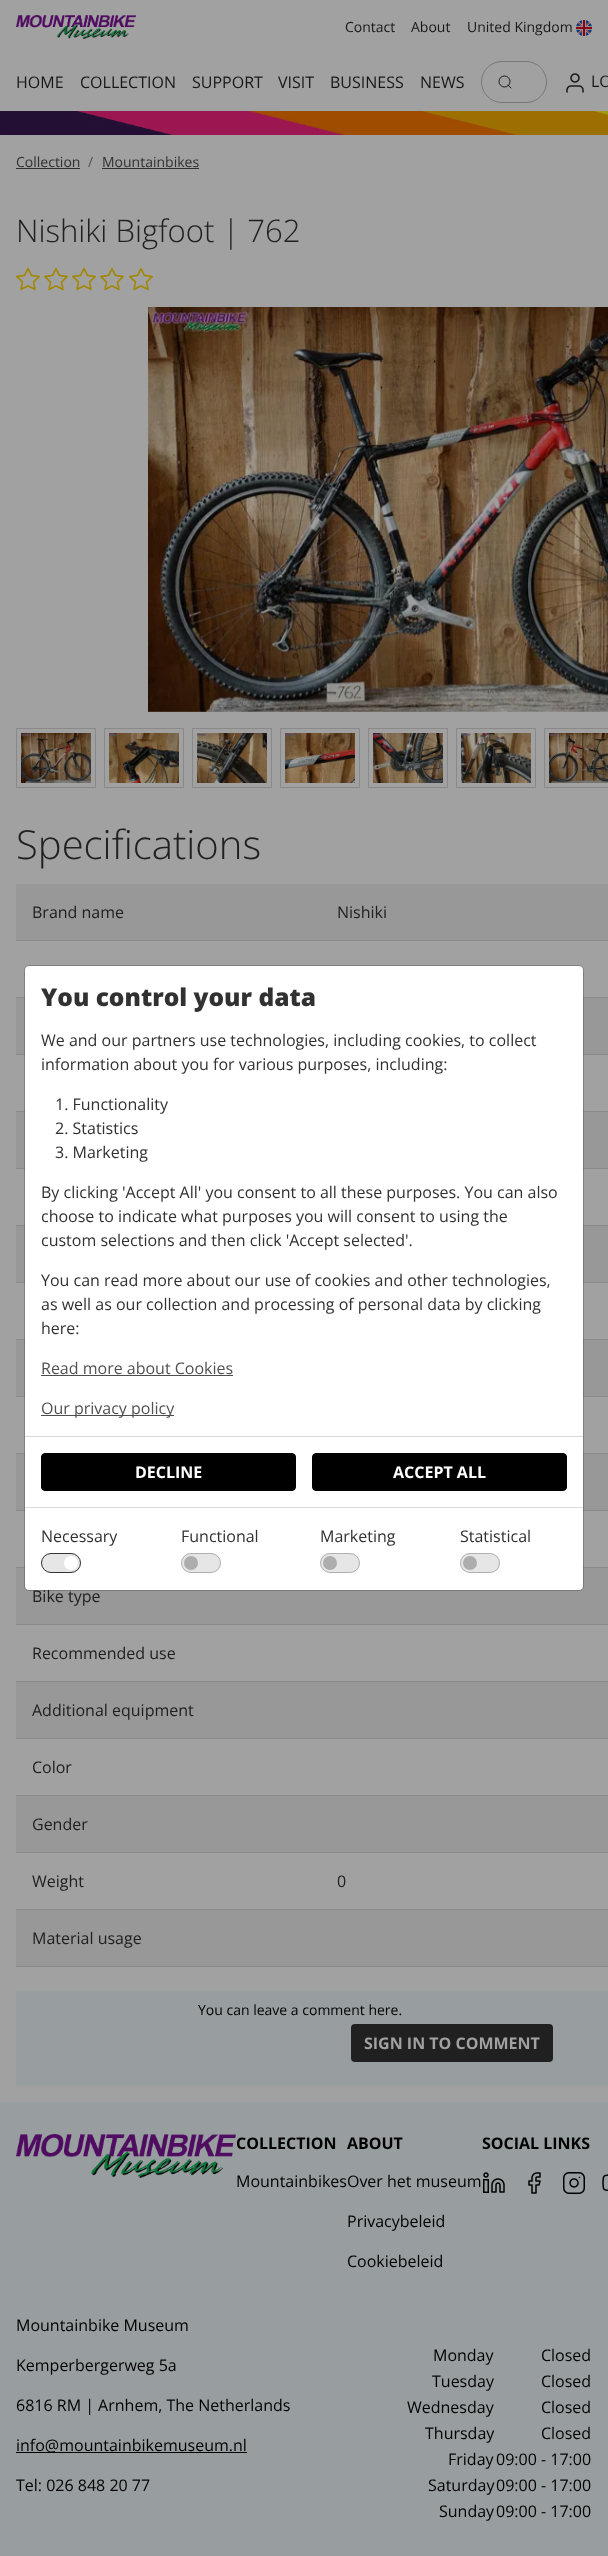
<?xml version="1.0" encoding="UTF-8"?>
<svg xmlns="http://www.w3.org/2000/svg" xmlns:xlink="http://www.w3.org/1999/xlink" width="608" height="2556">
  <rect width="100%" height="100%" fill="#a1a1a1" />
  <image x="16" y="15" width="120" height="24" xlink:href="image1.png" />
  <image x="576" y="20" width="16" height="16" xlink:href="image2.png" />
  <rect x="481.5" y="61.5" width="65" height="41" rx="20.5" fill="none" stroke="#787878" />
  <circle cx="504.5" cy="81.5" r="5.5" fill="none" stroke="#181818" />
  <path d="M 511 88 l -3 -3" fill="none" stroke="#181818" stroke-linecap="round" stroke-linejoin="round" />
  <image x="566" y="73" width="18" height="20" xlink:href="image3.png" />
  <image x="0" y="111" width="608" height="24" xlink:href="image4.png" />
  <rect x="16" y="168" width="64" height="1" fill="#313131" />
  <rect x="102" y="168" width="97" height="1" fill="#313131" />
  <image x="16" y="267" width="24" height="24" xlink:href="image5.png" />
  <image x="44" y="267" width="24" height="24" xlink:href="image5.png" />
  <image x="72" y="267" width="24" height="24" xlink:href="image5.png" />
  <image x="100" y="267" width="24" height="24" xlink:href="image5.png" />
  <image x="129" y="267" width="24" height="24" xlink:href="image5.png" />
  <image x="148" y="307" width="460" height="405" xlink:href="image6.png" />
  <rect x="16.5" y="728.5" width="79" height="59" fill="none" stroke="#898989" />
  <image x="21" y="733" width="70" height="50" xlink:href="image7.png" />
  <rect x="104.5" y="728.5" width="79" height="59" fill="none" stroke="#898989" />
  <image x="109" y="733" width="70" height="50" xlink:href="image8.png" />
  <rect x="192.5" y="728.5" width="79" height="59" fill="none" stroke="#898989" />
  <image x="197" y="733" width="70" height="50" xlink:href="image9.png" />
  <rect x="280.5" y="728.5" width="79" height="59" fill="none" stroke="#898989" />
  <image x="285" y="733" width="70" height="50" xlink:href="image10.png" />
  <rect x="368.5" y="728.5" width="79" height="59" fill="none" stroke="#898989" />
  <image x="373" y="733" width="70" height="50" xlink:href="image11.png" />
  <rect x="456.5" y="728.5" width="79" height="59" fill="none" stroke="#898989" />
  <image x="461" y="733" width="70" height="50" xlink:href="image12.png" />
  <rect x="544.5" y="728.5" width="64" height="59" fill="none" stroke="#898989" />
  <image x="549" y="733" width="59" height="50" xlink:href="image13.png" />
  <rect x="16" y="884" width="592" height="56" fill="#989898" />
  <rect x="16" y="940" width="592" height="1" fill="#898989" />
  <rect x="16" y="997" width="9" height="1" fill="#898989" />
  <rect x="583" y="997" width="25" height="1" fill="#898989" />
  <rect x="16" y="998" width="9" height="56" fill="#989898" />
  <rect x="16" y="1054" width="9" height="1" fill="#898989" />
  <rect x="583" y="998" width="25" height="56" fill="#989898" />
  <rect x="583" y="1054" width="25" height="1" fill="#898989" />
  <rect x="16" y="1111" width="9" height="1" fill="#898989" />
  <rect x="583" y="1111" width="25" height="1" fill="#898989" />
  <rect x="16" y="1112" width="9" height="56" fill="#989898" />
  <rect x="16" y="1168" width="9" height="1" fill="#898989" />
  <rect x="583" y="1112" width="25" height="56" fill="#989898" />
  <rect x="583" y="1168" width="25" height="1" fill="#898989" />
  <rect x="16" y="1225" width="9" height="1" fill="#898989" />
  <rect x="583" y="1225" width="25" height="1" fill="#898989" />
  <rect x="16" y="1226" width="9" height="56" fill="#989898" />
  <rect x="16" y="1282" width="9" height="1" fill="#898989" />
  <rect x="583" y="1226" width="25" height="56" fill="#989898" />
  <rect x="583" y="1282" width="25" height="1" fill="#898989" />
  <rect x="16" y="1339" width="9" height="1" fill="#898989" />
  <rect x="583" y="1339" width="25" height="1" fill="#898989" />
  <rect x="16" y="1340" width="9" height="56" fill="#989898" />
  <rect x="16" y="1396" width="9" height="1" fill="#898989" />
  <rect x="583" y="1340" width="25" height="56" fill="#989898" />
  <rect x="583" y="1396" width="25" height="1" fill="#898989" />
  <rect x="16" y="1453" width="9" height="1" fill="#898989" />
  <rect x="583" y="1453" width="25" height="1" fill="#898989" />
  <rect x="16" y="1454" width="9" height="56" fill="#989898" />
  <rect x="16" y="1510" width="9" height="1" fill="#898989" />
  <rect x="583" y="1454" width="25" height="56" fill="#989898" />
  <rect x="583" y="1510" width="25" height="1" fill="#898989" />
  <rect x="16" y="1567" width="9" height="1" fill="#898989" />
  <rect x="583" y="1567" width="25" height="1" fill="#898989" />
  <rect x="16" y="1568" width="592" height="56" fill="#989898" />
  <rect x="16" y="1624" width="592" height="1" fill="#898989" />
  <rect x="16" y="1681" width="592" height="1" fill="#898989" />
  <rect x="16" y="1682" width="592" height="56" fill="#989898" />
  <rect x="16" y="1738" width="592" height="1" fill="#898989" />
  <rect x="16" y="1795" width="592" height="1" fill="#898989" />
  <rect x="16" y="1796" width="592" height="56" fill="#989898" />
  <rect x="16" y="1852" width="592" height="1" fill="#898989" />
  <rect x="16" y="1909" width="592" height="1" fill="#898989" />
  <rect x="16" y="1910" width="592" height="56" fill="#989898" />
  <rect x="16" y="1966" width="592" height="1" fill="#898989" />
  <rect x="16" y="1991" width="592" height="95" fill="#989ea0" />
  <rect x="351" y="2024" width="202" height="38" rx="4" fill="#202020" />
  <rect y="2102" width="608" height="454" fill="#989ea0" />
  <image x="16" y="2134" width="220" height="44" xlink:href="image14.png" />
  <image x="483" y="2172" width="22" height="21" xlink:href="image15.png" />
  <image x="528" y="2172" width="13" height="22" xlink:href="image16.png" />
  <image x="563" y="2172" width="22" height="22" xlink:href="image17.png" />
  <image x="602" y="2174" width="6" height="17" xlink:href="image18.png" />
  <rect x="16" y="2452" width="231" height="1" fill="#000000" />
  <text x="345" y="32" style="font-family: Open Sans; font-size: 14px; fill: #181818">Contact</text>
  <text x="411" y="32" style="font-family: Open Sans; font-size: 14px; fill: #181818">About</text>
  <text x="467" y="32" style="font-family: Open Sans; font-size: 14px; fill: #181818">United Kingdom</text>
  <text x="16" y="88" style="font-family: Open Sans; font-size: 16px; fill: #181818">HOME</text>
  <text x="80" y="88" style="font-family: Open Sans; font-size: 16px; fill: #181818">COLLECTION</text>
  <text x="192" y="88" style="font-family: Open Sans; font-size: 16px; fill: #181818">SUPPORT</text>
  <text x="278" y="88" style="font-family: Open Sans; font-size: 16px; fill: #181818">VISIT</text>
  <text x="330" y="88" style="font-family: Open Sans; font-size: 16px; fill: #181818">BUSINESS</text>
  <text x="420" y="88" style="font-family: Open Sans; font-size: 16px; fill: #181818">NEWS</text>
  <text x="591" y="87" style="font-family: Open Sans; font-size: 16px; fill: #181818">LO</text>
  <text x="16" y="167" style="font-family: Open Sans; font-size: 14px; fill: #313131">Collection</text>
  <text x="88" y="167" style="font-family: Open Sans; font-size: 14px; fill: #515151">/</text>
  <text x="102" y="167" style="font-family: Open Sans; font-size: 14px; fill: #313131">Mountainbikes</text>
  <text x="16" y="242" style="font-family: Open Sans; font-size: 31.1px; font-weight: 300; fill: #202020">Nishiki Bigfoot | 762</text>
  <text x="16" y="859" style="font-family: Open Sans; font-size: 40px; font-weight: 300; fill: #202020">Specifications</text>
  <text x="32" y="918" style="font-family: Open Sans; font-size: 16px; fill: #202020">Brand name</text>
  <text x="337" y="918" style="font-family: Open Sans; font-size: 16px; fill: #202020">Nishiki</text>
  <text x="32" y="1602" style="font-family: Open Sans; font-size: 16px; fill: #202020">Bike type</text>
  <text x="32" y="1659" style="font-family: Open Sans; font-size: 16px; fill: #202020">Recommended use</text>
  <text x="32" y="1716" style="font-family: Open Sans; font-size: 16px; fill: #202020">Additional equipment</text>
  <text x="32" y="1773" style="font-family: Open Sans; font-size: 16px; fill: #202020">Color</text>
  <text x="32" y="1830" style="font-family: Open Sans; font-size: 16px; fill: #202020">Gender</text>
  <text x="32" y="1887" style="font-family: Open Sans; font-size: 16px; fill: #202020">Weight</text>
  <text x="337" y="1887" style="font-family: Open Sans; font-size: 16px; fill: #202020">0</text>
  <text x="32" y="1944" style="font-family: Open Sans; font-size: 16px; fill: #202020">Material usage</text>
  <text x="198" y="2015" style="font-family: Open Sans; font-size: 14px; fill: #000000">You can leave a comment here.</text>
  <text x="364" y="2049" style="font-family: Open Sans; font-size: 16px; font-weight: bold; fill: #a1a1a1">SIGN IN TO COMMENT</text>
  <rect x="25" y="966" width="558" height="624" rx="4" fill="#ffffff" />
  <rect x="24.5" y="965.5" width="559" height="625" rx="4.5" fill="none" stroke="#000000" stroke-opacity="0.2" />
  <text x="41" y="1006" style="font-family: Open Sans; font-size: 24.5px; font-weight: 800; fill: #313131">You control your data</text>
  <text x="41" y="1046" style="font-family: Open Sans; font-size: 16px; fill: #313131">We and our partners use technologies, including cookies, to collect</text>
  <text x="41" y="1070" style="font-family: Open Sans; font-size: 16px; fill: #313131">information about you for various purposes, including:</text>
  <text x="55" y="1110" style="font-family: Open Sans; font-size: 16px; fill: #313131">1. Functionality</text>
  <text x="55" y="1134" style="font-family: Open Sans; font-size: 16px; fill: #313131">2. Statistics</text>
  <text x="55" y="1158" style="font-family: Open Sans; font-size: 16px; fill: #313131">3. Marketing</text>
  <text x="41" y="1198" style="font-family: Open Sans; font-size: 16px; fill: #313131">By clicking 'Accept All' you consent to all these purposes. You can also</text>
  <text x="41" y="1222" style="font-family: Open Sans; font-size: 16px; fill: #313131">choose to indicate what purposes you will consent to using the</text>
  <text x="41" y="1246" style="font-family: Open Sans; font-size: 16px; fill: #313131">custom selections and then click 'Accept selected'.</text>
  <text x="41" y="1286" style="font-family: Open Sans; font-size: 16px; fill: #313131">You can read more about our use of cookies and other technologies,</text>
  <text x="41" y="1310" style="font-family: Open Sans; font-size: 16px; fill: #313131">as well as our collection and processing of personal data by clicking</text>
  <text x="41" y="1334" style="font-family: Open Sans; font-size: 16px; fill: #313131">here:</text>
  <text x="41" y="1374" style="font-family: Open Sans; font-size: 16px; fill: #515151">Read more about Cookies</text>
  <rect x="41" y="1375" width="192" height="1" fill="#4d4d4d" />
  <rect x="41" y="1415" width="133" height="1" fill="#4d4d4d" />
  <text x="41" y="1414" style="font-family: Open Sans; font-size: 16px; fill: #515151">Our privacy policy</text>
  <rect x="25" y="1436" width="558" height="1" fill="#d9d9d9" />
  <rect x="41.5" y="1453.5" width="254" height="37" rx="3.5" fill="#000000" stroke="#000000" />
  <text x="135" y="1478" style="font-family: Open Sans; font-size: 16px; font-weight: bold; fill: #ffffff">DECLINE</text>
  <rect x="312.5" y="1453.5" width="254" height="37" rx="3.5" fill="#000000" stroke="#000000" />
  <text x="393" y="1478" style="font-family: Open Sans; font-size: 16px; font-weight: bold; fill: #ffffff">ACCEPT ALL</text>
  <rect x="25" y="1507" width="558" height="1" fill="#d9d9d9" />
  <text x="41" y="1542" style="font-family: Open Sans; font-size: 16px; fill: #313131">Necessary</text>
  <rect x="41" y="1553" width="40" height="20" rx="10" fill="#e6e6e6" />
  <circle cx="71" cy="1563" r="7" fill="#ffffff" />
  <rect x="41.5" y="1553.5" width="39" height="19" rx="9.5" fill="none" stroke="#333333" />
  <text x="181" y="1542" style="font-family: Open Sans; font-size: 16px; fill: #313131">Functional</text>
  <rect x="181" y="1553" width="40" height="20" rx="10" fill="#e6e6e6" />
  <circle cx="191" cy="1563" r="7" fill="#adadad" />
  <rect x="181.5" y="1553.5" width="39" height="19" rx="9.5" fill="none" stroke="#333333" stroke-opacity="0.3" />
  <text x="320" y="1542" style="font-family: Open Sans; font-size: 16px; fill: #313131">Marketing</text>
  <rect x="320" y="1553" width="40" height="20" rx="10" fill="#e6e6e6" />
  <circle cx="330" cy="1563" r="7" fill="#adadad" />
  <rect x="320.5" y="1553.5" width="39" height="19" rx="9.5" fill="none" stroke="#333333" stroke-opacity="0.3" />
  <text x="460" y="1542" style="font-family: Open Sans; font-size: 16px; fill: #313131">Statistical</text>
  <rect x="460" y="1553" width="40" height="20" rx="10" fill="#e6e6e6" />
  <circle cx="470" cy="1563" r="7" fill="#adadad" />
  <rect x="460.5" y="1553.5" width="39" height="19" rx="9.5" fill="none" stroke="#333333" stroke-opacity="0.3" />
  <text x="236" y="2149" style="font-family: Open Sans; font-size: 16px; font-weight: bold; fill: #000000">COLLECTION</text>
  <text x="236" y="2187" style="font-family: Open Sans; font-size: 16px; fill: #000000">MountainbikesOver het museum</text>
  <text x="347" y="2149" style="font-family: Open Sans; font-size: 16px; font-weight: bold; fill: #000000">ABOUT</text>
  <text x="347" y="2227" style="font-family: Open Sans; font-size: 16px; fill: #000000">Privacybeleid</text>
  <text x="347" y="2267" style="font-family: Open Sans; font-size: 16px; fill: #000000">Cookiebeleid</text>
  <text x="482" y="2149" style="font-family: Open Sans; font-size: 16px; font-weight: bold; fill: #000000">SOCIAL LINKS</text>
  <text x="16" y="2331" style="font-family: Open Sans; font-size: 16px; fill: #000000">Mountainbike Museum</text>
  <text x="16" y="2371" style="font-family: Open Sans; font-size: 16px; fill: #000000">Kemperbergerweg 5a</text>
  <text x="16" y="2411" style="font-family: Open Sans; font-size: 16px; fill: #000000">6816 RM | Arnhem, The Netherlands</text>
  <text x="16" y="2451" style="font-family: Open Sans; font-size: 16px; fill: #000000">info@mountainbikemuseum.nl</text>
  <text x="16" y="2491" style="font-family: Open Sans; font-size: 16px; fill: #000000">Tel: 026 848 20 77</text>
  <text x="433" y="2361" style="font-family: Open Sans; font-size: 16px; fill: #000000">Monday</text>
  <text x="541" y="2361" style="font-family: Open Sans; font-size: 16px; fill: #000000">Closed</text>
  <text x="432" y="2387" style="font-family: Open Sans; font-size: 16px; fill: #000000">Tuesday</text>
  <text x="541" y="2387" style="font-family: Open Sans; font-size: 16px; fill: #000000">Closed</text>
  <text x="407" y="2413" style="font-family: Open Sans; font-size: 16px; fill: #000000">Wednesday</text>
  <text x="541" y="2413" style="font-family: Open Sans; font-size: 16px; fill: #000000">Closed</text>
  <text x="425" y="2439" style="font-family: Open Sans; font-size: 16px; fill: #000000">Thursday</text>
  <text x="541" y="2439" style="font-family: Open Sans; font-size: 16px; fill: #000000">Closed</text>
  <text x="448" y="2465" style="font-family: Open Sans; font-size: 16px; fill: #000000">Friday</text>
  <text x="496" y="2465" style="font-family: Open Sans; font-size: 16px; fill: #000000">09:00 - 17:00</text>
  <text x="428" y="2491" style="font-family: Open Sans; font-size: 16px; fill: #000000">Saturday</text>
  <text x="496" y="2491" style="font-family: Open Sans; font-size: 16px; fill: #000000">09:00 - 17:00</text>
  <text x="439" y="2517" style="font-family: Open Sans; font-size: 16px; fill: #000000">Sunday</text>
  <text x="496" y="2517" style="font-family: Open Sans; font-size: 16px; fill: #000000">09:00 - 17:00</text>
</svg>
